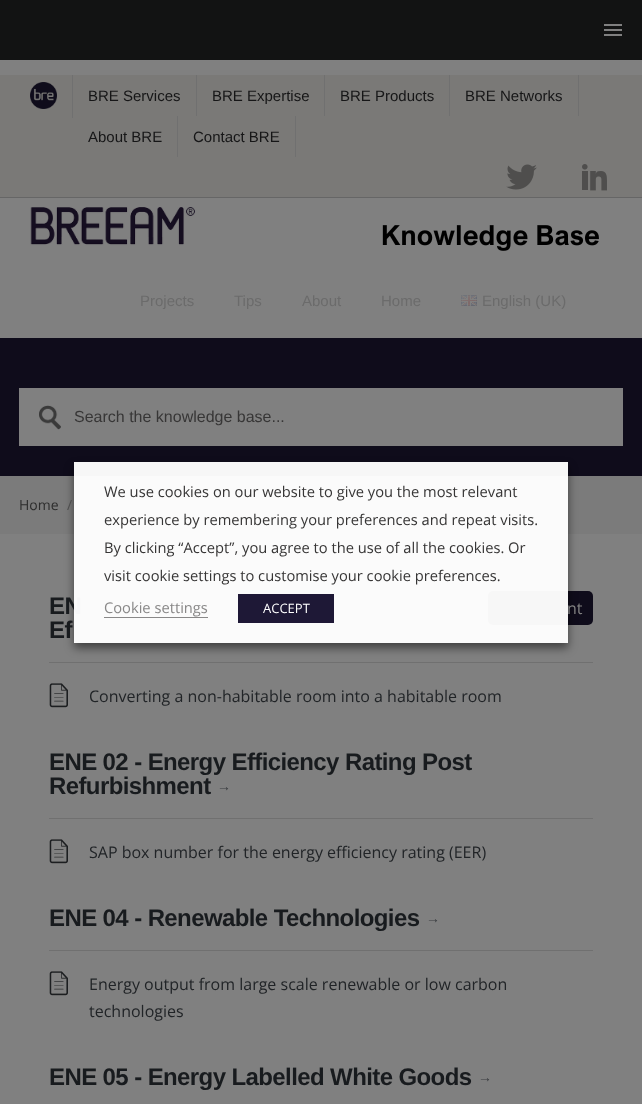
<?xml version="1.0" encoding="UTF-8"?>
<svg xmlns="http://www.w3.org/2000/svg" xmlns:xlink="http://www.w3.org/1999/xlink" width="642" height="1104">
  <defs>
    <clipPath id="clip1"><path d="M 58 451 h 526 v 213 h -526 z m 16 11 h 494 v 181 h -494 z" clip-rule="evenodd" /></clipPath>
  </defs>
  <rect width="100%" height="100%" fill="#808080" />
  <rect width="642" height="60" fill="#121313" />
  <rect x="604" y="24" width="18" height="2" fill="#808080" />
  <rect x="604" y="29" width="18" height="2" fill="#808080" />
  <rect x="604" y="34" width="18" height="2" fill="#808080" />
  <rect y="75" width="642" height="122" fill="#7a7977" />
  <rect y="197" width="642" height="1" fill="#666666" />
  <rect x="72" y="75" width="1" height="43" fill="#707070" />
  <image x="30" y="82" width="27" height="27" xlink:href="image1.png" />
  <rect x="196" y="75" width="1" height="41" fill="#707070" />
  <rect x="324" y="75" width="1" height="41" fill="#707070" />
  <rect x="449" y="75" width="1" height="41" fill="#707070" />
  <rect x="578" y="75" width="1" height="41" fill="#707070" />
  <rect x="177" y="116" width="1" height="41" fill="#707070" />
  <rect x="295" y="116" width="1" height="41" fill="#707070" />
  <image x="506" y="164" width="31" height="26" xlink:href="image2.png" />
  <image x="582" y="164" width="25" height="27" xlink:href="image3.png" />
  <image x="30" y="207" width="569" height="44" xlink:href="image4.png" />
  <image x="461" y="295" width="16" height="11" xlink:href="image5.png" />
  <rect y="338" width="642" height="138" fill="#0f0c1b" />
  <rect x="19" y="388" width="604" height="58" fill="#808080" />
  <image x="39" y="405" width="22" height="25" xlink:href="image6.png" />
  <rect y="476" width="642" height="58" fill="#7b7b7b" />
  <rect x="49" y="662" width="544" height="1" fill="#707070" />
  <rect x="488" y="591" width="105" height="34" rx="5" fill="#0f0c1b" />
  <g clip-path="url(#clip1)">
    <rect x="74" y="467" width="494" height="181" fill="#000000" fill-opacity="0.5" filter="blur(5px)" />
  </g>
  <image x="49" y="683" width="19" height="25" xlink:href="image7.png" />
  <rect x="49" y="818" width="544" height="1" fill="#707070" />
  <image x="49" y="839" width="19" height="25" xlink:href="image7.png" />
  <rect x="49" y="950" width="544" height="1" fill="#707070" />
  <image x="49" y="971" width="19" height="25" xlink:href="image7.png" />
  <text x="88" y="101" style="font-family: Liberation Sans; font-size: 15px; fill: #161617">BRE Services</text>
  <text x="212" y="101" style="font-family: Liberation Sans; font-size: 15px; fill: #161617">BRE Expertise</text>
  <text x="340" y="101" style="font-family: Liberation Sans; font-size: 15px; fill: #161617">BRE Products</text>
  <text x="465" y="101" style="font-family: Liberation Sans; font-size: 15px; fill: #161617">BRE Networks</text>
  <text x="88" y="142" style="font-family: Liberation Sans; font-size: 15px; fill: #161617">About BRE</text>
  <text x="193" y="142" style="font-family: Liberation Sans; font-size: 15px; fill: #161617">Contact BRE</text>
  <text x="140" y="306" style="font-family: Liberation Sans; font-size: 15px; fill: #6b6b6b">Projects</text>
  <text x="234" y="306" style="font-family: Liberation Sans; font-size: 15px; fill: #6b6b6b">Tips</text>
  <text x="302" y="306" style="font-family: Liberation Sans; font-size: 15px; fill: #6b6b6b">About</text>
  <text x="381" y="306" style="font-family: Liberation Sans; font-size: 15px; fill: #6b6b6b">Home</text>
  <text x="482" y="306" style="font-family: Liberation Sans; font-size: 15px; fill: #6b6b6b">English (UK)</text>
  <text x="74" y="422" style="font-family: Liberation Sans; font-size: 16px; fill: #373636">Search the knowledge base...</text>
  <text x="19" y="510" style="font-family: Open Sans; font-size: 14px; fill: #2d2d2d">Home</text>
  <text x="67" y="510" style="font-family: Open Sans; font-size: 14px; fill: #4d4d4d">/</text>
  <text x="49" y="614" style="font-family: Liberation Sans; font-size: 24px; font-weight: bold; letter-spacing: -0.6px; fill: #181b1e">EN</text>
  <rect x="74" y="462" width="494" height="181" fill="#ffffff" fill-opacity="0.97" />
  <rect x="238" y="594" width="96" height="29" fill="#1e1836" />
  <text x="263" y="613" style="font-family: Open Sans; font-size: 13px; fill: #ffffff">ACCEPT</text>
  <text x="104" y="613" style="font-family: Open Sans; font-size: 14.7px; fill: #898888">Cookie settings</text>
  <rect x="104" y="617" width="104" height="1" fill="#898888" />
  <text x="104" y="581" style="font-family: Open Sans; font-size: 14.7px; fill: #373636">visit cookie settings to customise your cookie preferences.</text>
  <text x="104" y="553" style="font-family: Open Sans; font-size: 14.7px; fill: #373636">By clicking “Accept”, you agree to the use of all the cookies. Or</text>
  <text x="104" y="525" style="font-family: Open Sans; font-size: 14.7px; fill: #373636">experience by remembering your preferences and repeat visits.</text>
  <text x="104" y="497" style="font-family: Open Sans; font-size: 14.7px; fill: #373636">We use cookies on our website to give you the most relevant</text>
  <text x="49" y="638" style="font-family: Liberation Sans; font-size: 24px; font-weight: bold; letter-spacing: -0.6px; fill: #181b1e">Ef</text>
  <text x="89" y="702" style="font-family: Open Sans; font-size: 16px; fill: #212427">Converting a non-habitable room into a habitable room</text>
  <text x="49" y="770" style="font-family: Liberation Sans; font-size: 24px; font-weight: bold; letter-spacing: -0.6px; fill: #181b1e">ENE 02 - Energy Efficiency Rating Post</text>
  <text x="49" y="794" style="font-family: Liberation Sans; font-size: 24px; font-weight: bold; letter-spacing: -0.6px; fill: #181b1e">Refurbishment</text>
  <text x="217" y="791" style="font-family: Liberation Sans; font-size: 14px; font-weight: bold; letter-spacing: -0.6px; fill: #3a3d40">→</text>
  <text x="89" y="858" style="font-family: Open Sans; font-size: 16px; fill: #212427">SAP box number for the energy efficiency rating (EER)</text>
  <text x="49" y="926" style="font-family: Liberation Sans; font-size: 24px; font-weight: bold; letter-spacing: -0.6px; fill: #181b1e">ENE 04 - Renewable Technologies</text>
  <text x="426" y="923" style="font-family: Liberation Sans; font-size: 14px; font-weight: bold; letter-spacing: -0.6px; fill: #3a3d40">→</text>
  <text x="89" y="990" style="font-family: Open Sans; font-size: 16px; fill: #212427">Energy output from large scale renewable or low carbon</text>
  <text x="89" y="1017" style="font-family: Open Sans; font-size: 16px; fill: #212427">technologies</text>
  <text x="49" y="1085" style="font-family: Liberation Sans; font-size: 24px; font-weight: bold; letter-spacing: -0.6px; fill: #181b1e">ENE 05 - Energy Labelled White Goods</text>
  <text x="478" y="1082" style="font-family: Liberation Sans; font-size: 14px; font-weight: bold; letter-spacing: -0.6px; fill: #3a3d40">→</text>
  <text x="567" y="614" style="font-family: Open Sans; font-size: 16px; fill: #808080">nt</text>
</svg>
